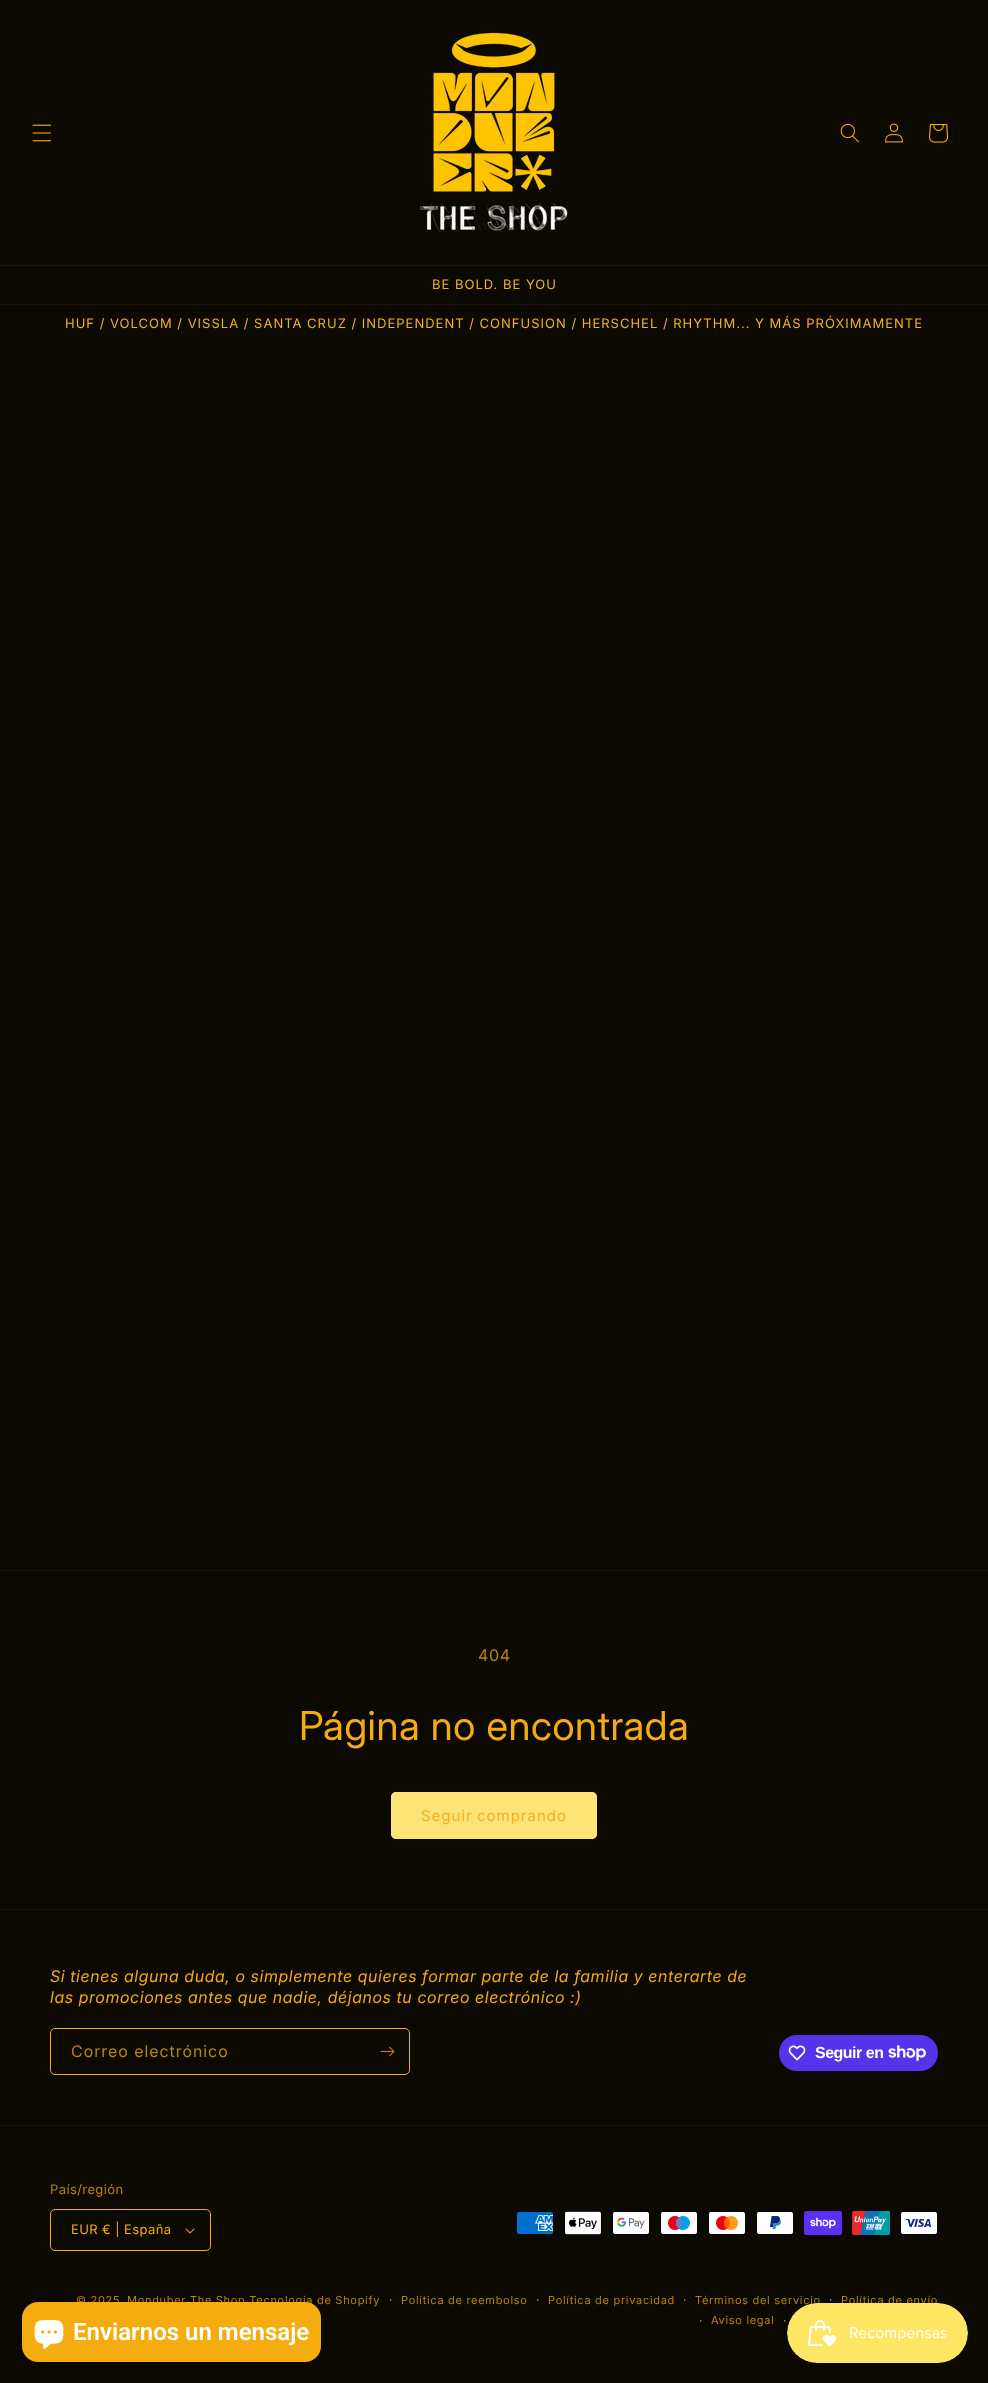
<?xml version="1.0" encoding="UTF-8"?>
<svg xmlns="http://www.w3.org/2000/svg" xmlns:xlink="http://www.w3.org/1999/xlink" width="988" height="2383">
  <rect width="100%" height="100%" fill="#0c0902" />
  <rect y="265" width="988" height="1" fill="#1f1603" />
  <image x="32" y="124" width="20" height="18" xlink:href="image1.png" />
  <image x="420" y="32" width="148" height="201" xlink:href="image2.png" />
  <image x="840" y="123" width="19" height="20" xlink:href="image3.png" />
  <image x="885" y="123" width="18" height="20" xlink:href="image4.png" />
  <image x="929" y="124" width="20" height="19" xlink:href="image5.png" />
  <rect y="304" width="988" height="1" fill="#1e1604" />
  <rect y="1570" width="988" height="1" fill="#1e1604" />
  <rect x="391" y="1792" width="206" height="47" rx="5" fill="#fce477" />
  <rect x="391.5" y="1792.5" width="205" height="46" rx="4.5" fill="none" stroke="#fce477" />
  <rect y="1909" width="988" height="1" fill="#1f1603" />
  <rect x="50.5" y="2028.5" width="359" height="46" rx="4.5" fill="none" stroke="#f5ac0f" />
  <image x="380" y="2046" width="15" height="11" xlink:href="image6.png" />
  <rect x="779" y="2035" width="159" height="36" rx="18" fill="#5433eb" />
  <image x="788" y="2045" width="18" height="16" xlink:href="image7.png" />
  <image x="888" y="2045" width="38" height="16" xlink:href="image8.png" />
  <rect y="2125" width="988" height="1" fill="#1f1603" />
  <image x="185" y="2228" width="10" height="6" xlink:href="image9.png" />
  <rect x="50.5" y="2209.5" width="160" height="41" rx="4.5" fill="none" stroke="#f5ac0f" />
  <image x="517" y="2212" width="36" height="22" xlink:href="image10.png" />
  <image x="564" y="2211" width="38" height="24" xlink:href="image11.png" />
  <image x="613" y="2212" width="36" height="22" xlink:href="image12.png" />
  <image x="661" y="2212" width="36" height="22" xlink:href="image13.png" />
  <image x="709" y="2212" width="36" height="22" xlink:href="image14.png" />
  <image x="757" y="2212" width="36" height="22" xlink:href="image15.png" />
  <image x="804" y="2211" width="38" height="24" xlink:href="image16.png" />
  <image x="852" y="2211" width="38" height="24" xlink:href="image17.png" />
  <image x="901" y="2212" width="36" height="22" xlink:href="image18.png" />
  <rect x="22" y="2302" width="299" height="60" rx="16" fill="#000000" fill-opacity="0.15" filter="blur(2.5px)" />
  <text x="432" y="289" style="font-family: Inter; font-size: 13px; letter-spacing: 1px; fill: #f2b121">BE BOLD. BE YOU</text>
  <text x="65" y="328" style="font-family: Inter; font-size: 13px; letter-spacing: 1px; fill: #f2b121">HUF / VOLCOM / VISSLA / SANTA CRUZ / INDEPENDENT / CONFUSION / HERSCHEL / RHYTHM... Y MÁS PRÓXIMAMENTE</text>
  <text x="478" y="1661" style="font-family: Inter; font-size: 16px; letter-spacing: 0.6px; fill: #bb830c">404</text>
  <text x="299" y="1740" style="font-family: 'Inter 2'; font-size: 40px; letter-spacing: 0.6px; fill: #f5ac0f">Página no encontrada</text>
  <text x="421" y="1821" word-spacing="-1" style="font-family: Inter; font-size: 15px; letter-spacing: 1px; fill: #f2b121">Seguir comprando</text>
  <text x="50" y="1982" style="font-family: Inter; font-size: 16px; font-style: italic; letter-spacing: 0.6px; fill: #f5ac0f">Si tienes alguna duda, o simplemente quieres formar parte de la familia y enterarte de</text>
  <text x="50" y="2003" style="font-family: Inter; font-size: 16px; font-style: italic; letter-spacing: 0.6px; fill: #f5ac0f">las promociones antes que nadie, déjanos tu correo electrónico :)</text>
  <text x="71" y="2057" style="font-family: 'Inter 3'; font-size: 16px; letter-spacing: 1px; fill: #bb830c">Correo electrónico</text>
  <text x="815" y="2058" style="font-family: Liberation Sans; font-size: 16px; font-weight: bold; letter-spacing: -0.5px; fill: #ffffff">Seguir en</text>
  <text x="50" y="2194" style="font-family: Inter; font-size: 13px; letter-spacing: 0.4px; fill: #bb830c">País/región</text>
  <text x="71" y="2234" style="font-family: Inter; font-size: 13px; letter-spacing: 0.4px; fill: #f5ac0f">EUR € | España</text>
  <text x="76" y="2304" style="font-family: Inter; font-size: 11px; letter-spacing: 0.7px; fill: #bb830c">© 2025</text>
  <text x="127" y="2304" style="font-family: Inter; font-size: 11px; letter-spacing: 0.7px; fill: #bb830c">Monduber The Shop Tecnología de Shopify</text>
  <text x="389" y="2304" style="font-family: Inter; font-size: 12px; letter-spacing: 0.7px; fill: #bb830c">·</text>
  <text x="401" y="2304" style="font-family: Inter; font-size: 11px; letter-spacing: 0.7px; fill: #bb830c">Política de reembolso</text>
  <text x="536" y="2304" style="font-family: Inter; font-size: 12px; letter-spacing: 0.7px; fill: #bb830c">·</text>
  <text x="548" y="2304" style="font-family: Inter; font-size: 11px; letter-spacing: 0.7px; fill: #bb830c">Política de privacidad</text>
  <text x="683" y="2304" style="font-family: Inter; font-size: 12px; letter-spacing: 0.7px; fill: #bb830c">·</text>
  <text x="695" y="2304" style="font-family: Inter; font-size: 11px; letter-spacing: 0.7px; fill: #bb830c">Términos del servicio</text>
  <text x="829" y="2304" style="font-family: Inter; font-size: 12px; letter-spacing: 0.7px; fill: #bb830c">·</text>
  <text x="841" y="2304" style="font-family: Inter; font-size: 11px; letter-spacing: 0.7px; fill: #bb830c">Política de envío</text>
  <text x="699" y="2325" style="font-family: Inter; font-size: 12px; letter-spacing: 0.7px; fill: #bb830c">·</text>
  <text x="711" y="2324" style="font-family: Inter; font-size: 11px; letter-spacing: 0.7px; fill: #bb830c">Aviso legal</text>
  <text x="783" y="2325" style="font-family: Inter; font-size: 12px; letter-spacing: 0.7px; fill: #bb830c">·</text>
  <rect x="22" y="2302" width="299" height="60" rx="16" fill="#f5ac0f" />
  <image x="34" y="2320" width="30" height="29" xlink:href="image19.png" />
  <text x="73" y="2340" style="font-family: Roboto; font-size: 24px; font-weight: 600; fill: #ffffff">Enviarnos un mensaje</text>
  <image x="787" y="2303" width="181" height="60" xlink:href="image20.png" />
</svg>
